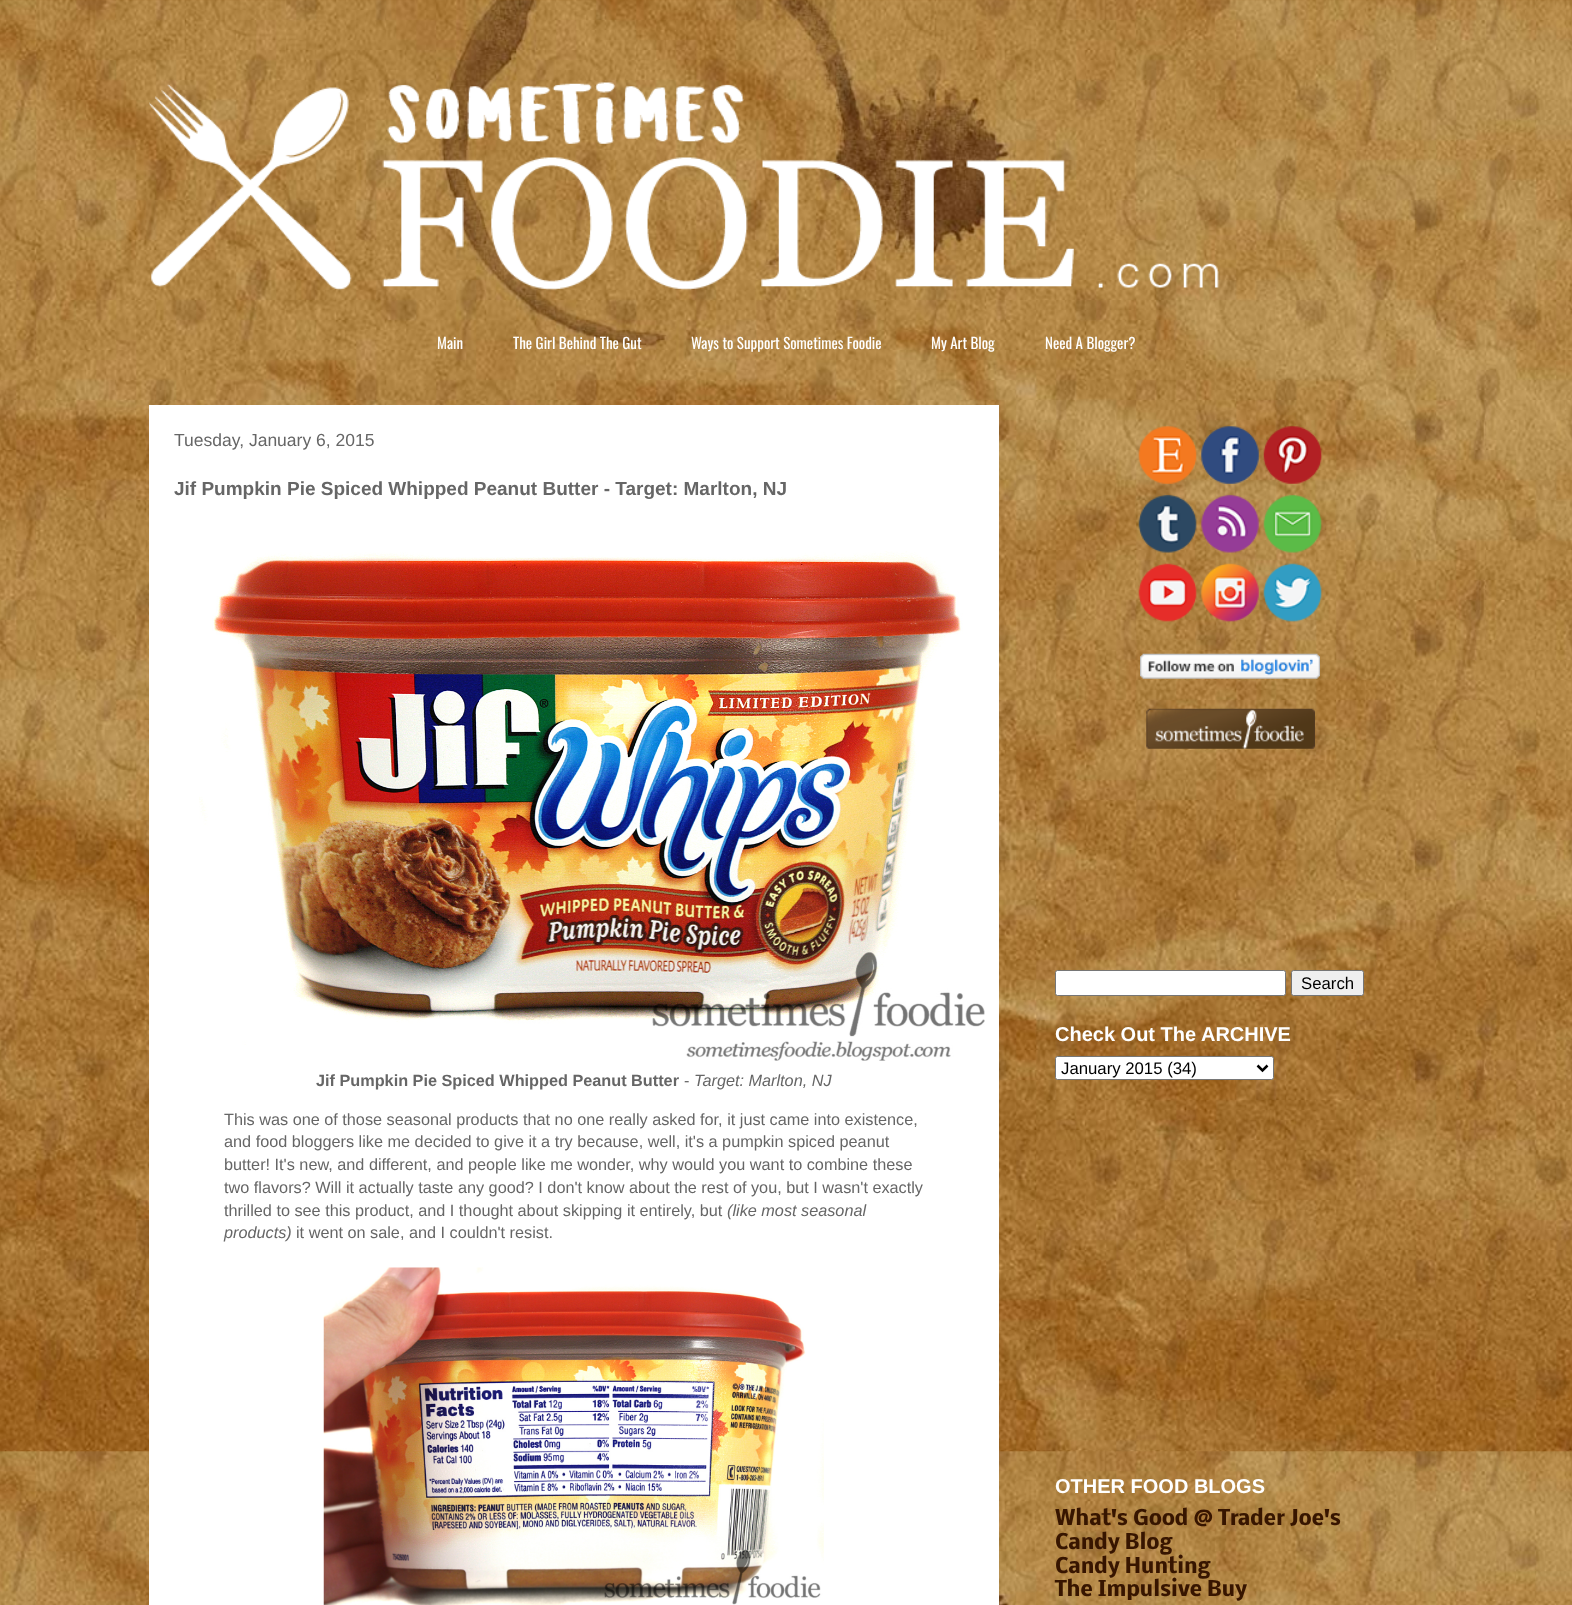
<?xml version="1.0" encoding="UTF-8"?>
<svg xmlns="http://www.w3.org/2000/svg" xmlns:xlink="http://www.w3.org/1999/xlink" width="1572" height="1605">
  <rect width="100%" height="100%" fill="#ffffff" />
  <image x="0" y="0" width="1572" height="1605" xlink:href="image1.png" />
  <image x="149" y="82" width="1070" height="209" xlink:href="image2.png" />
  <rect x="149" y="405" width="850" height="1200" fill="#ffffff" />
  <image x="199" y="551" width="786" height="510" xlink:href="image3.png" />
  <image x="323" y="1267" width="501" height="338" xlink:href="image4.png" />
  <image x="1138" y="426" width="59" height="58" xlink:href="image5.png" />
  <image x="1201" y="426" width="58" height="58" xlink:href="image6.png" />
  <image x="1263" y="426" width="59" height="58" xlink:href="image7.png" />
  <image x="1138" y="494" width="59" height="59" xlink:href="image8.png" />
  <image x="1201" y="494" width="58" height="59" xlink:href="image9.png" />
  <image x="1263" y="494" width="59" height="59" xlink:href="image10.png" />
  <image x="1138" y="563" width="59" height="59" xlink:href="image11.png" />
  <image x="1201" y="563" width="58" height="59" xlink:href="image12.png" />
  <image x="1263" y="563" width="59" height="59" xlink:href="image13.png" />
  <image x="1140" y="653" width="180" height="26" xlink:href="image14.png" />
  <image x="1146" y="708" width="169" height="41" xlink:href="image15.png" />
  <rect x="1055.5" y="970.5" width="230" height="25" rx="2" fill="#ffffff" stroke="#767676" />
  <rect x="1291.5" y="970.5" width="72" height="25" rx="2" fill="#efefef" stroke="#767676" />
  <rect x="1055.5" y="1056.5" width="218" height="23" rx="2" fill="#ffffff" stroke="#767676" />
  <path d="M 1257.5 1065.5 l 5 5 l 5 -5" fill="none" stroke="#000000" stroke-width="2.5" />
  <text x="437" y="349" style="font-family: Oswald; font-size: 15px; fill: #ffffff">Main</text>
  <text x="513" y="349" style="font-family: Oswald; font-size: 15px; fill: #ffffff">The Girl Behind The Gut</text>
  <text x="691" y="349" style="font-family: Oswald; font-size: 15px; fill: #ffffff">Ways to Support Sometimes Foodie</text>
  <text x="931" y="349" style="font-family: Oswald; font-size: 15px; fill: #ffffff">My Art Blog</text>
  <text x="1045" y="349" style="font-family: Oswald; font-size: 15px; fill: #ffffff">Need A Blogger?</text>
  <text x="174" y="446" style="font-family: Liberation Sans; font-size: 17.5px; fill: #666666">Tuesday, January 6, 2015</text>
  <text x="174" y="495" style="font-family: Liberation Sans; font-size: 19px; font-weight: bold; fill: #666666">Jif Pumpkin Pie Spiced Whipped Peanut Butter - Target: Marlton, NJ</text>
  <text x="316" y="1086" style="font-family: Liberation Sans; font-size: 16.25px; font-weight: bold; fill: #666666">Jif Pumpkin Pie Spiced Whipped Peanut Butter</text>
  <text x="684" y="1086" style="font-family: Liberation Sans; font-size: 16.25px; fill: #666666">-</text>
  <text x="694" y="1086" style="font-family: Liberation Sans; font-size: 16.25px; font-style: italic; fill: #666666">Target: Marlton, NJ</text>
  <text x="224" y="1125" style="font-family: Liberation Sans; font-size: 16.25px; fill: #666666">This was one of those seasonal products that no one really asked for, it just came into existence,</text>
  <text x="224" y="1147" style="font-family: Liberation Sans; font-size: 16.25px; fill: #666666">and food bloggers like me decided to give it a try because, well, it's a pumpkin spiced peanut</text>
  <text x="224" y="1170" style="font-family: Liberation Sans; font-size: 16.25px; fill: #666666">butter! It's new, and different, and people like me wonder, why would you want to combine these</text>
  <text x="224" y="1193" style="font-family: Liberation Sans; font-size: 16.25px; fill: #666666">two flavors? Will it actually taste any good? I don't know about the rest of you, but I wasn't exactly</text>
  <text x="224" y="1216" style="font-family: Liberation Sans; font-size: 16.25px; fill: #666666">thrilled to see this product, and I thought about skipping it entirely, but</text>
  <text x="727" y="1216" style="font-family: Liberation Sans; font-size: 16.25px; font-style: italic; fill: #666666">(like most seasonal</text>
  <text x="224" y="1238" style="font-family: Liberation Sans; font-size: 16.25px; font-style: italic; fill: #666666">products)</text>
  <text x="296" y="1238" style="font-family: Liberation Sans; font-size: 16.25px; fill: #666666">it went on sale, and I couldn't resist.</text>
  <text x="1301" y="989" style="font-family: Liberation Sans; font-size: 16.75px; fill: #000000">Search</text>
  <text x="1055" y="1041" style="font-family: Liberation Sans; font-size: 20px; font-weight: bold; fill: #ffffff">Check Out The ARCHIVE</text>
  <text x="1061" y="1074" style="font-family: Liberation Sans; font-size: 16.75px; fill: #000000">January 2015 (34)</text>
  <text x="1055" y="1493" style="font-family: Liberation Sans; font-size: 20px; font-weight: bold; fill: #ffffff">OTHER FOOD BLOGS</text>
  <text x="1055" y="1525" style="font-family: Nobile; font-size: 20px; font-weight: bold; fill: #371500">What's Good @ Trader Joe's</text>
  <text x="1055" y="1549" style="font-family: Nobile; font-size: 20px; font-weight: bold; fill: #371500">Candy Blog</text>
  <text x="1055" y="1573" style="font-family: Nobile; font-size: 20px; font-weight: bold; fill: #371500">Candy Hunting</text>
  <text x="1055" y="1596" style="font-family: Nobile; font-size: 20px; font-weight: bold; fill: #371500">The Impulsive Buy</text>
</svg>
